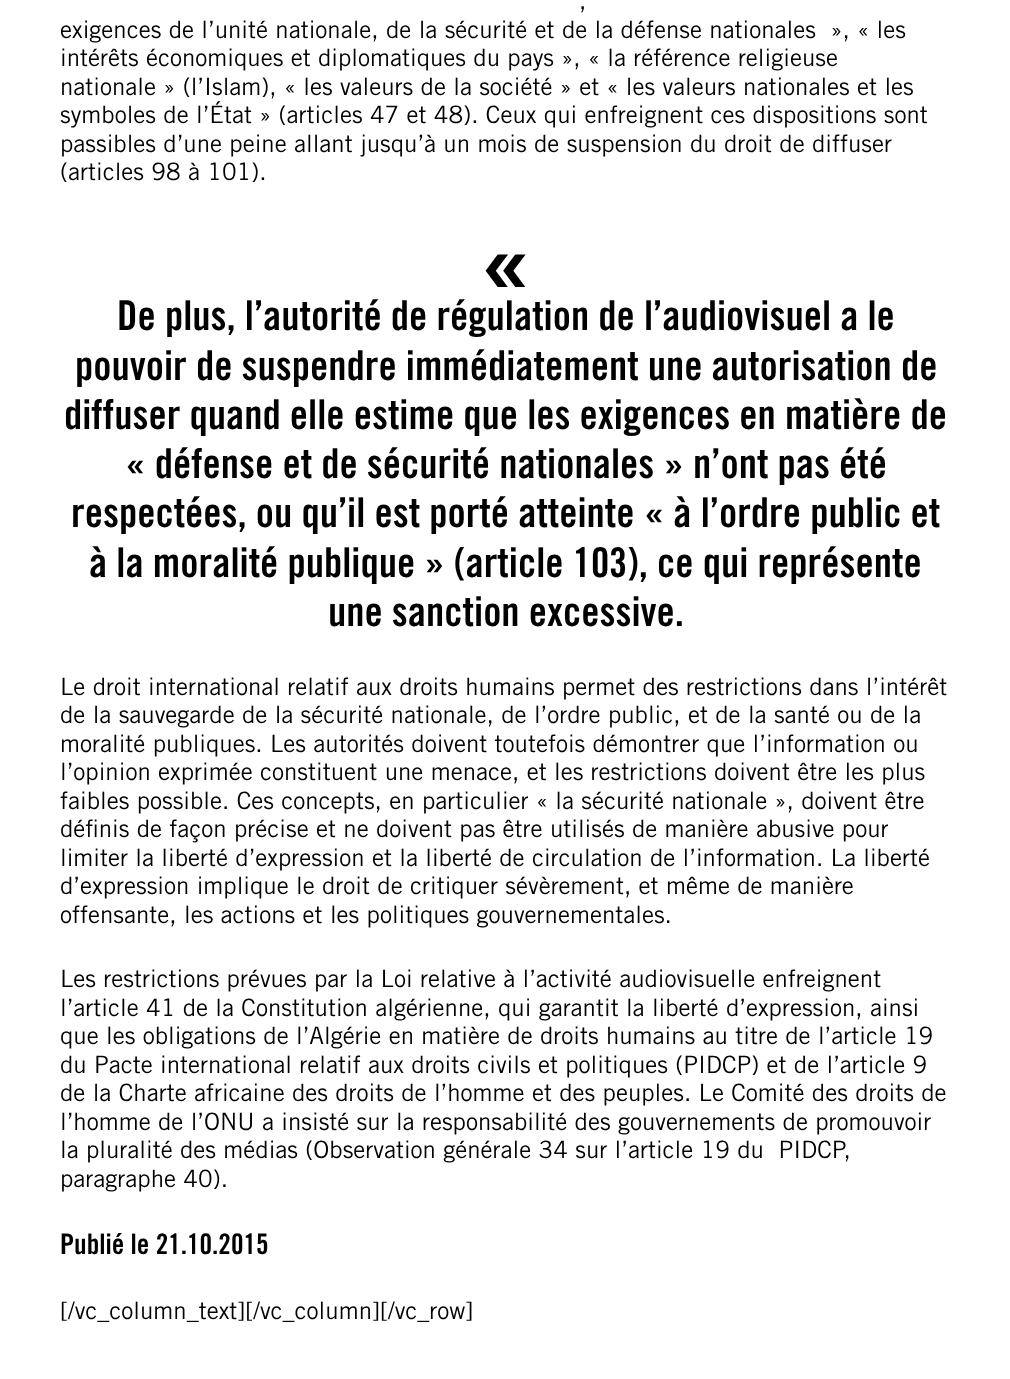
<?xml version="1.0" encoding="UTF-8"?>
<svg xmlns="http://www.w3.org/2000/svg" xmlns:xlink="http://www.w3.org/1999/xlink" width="1010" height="1379">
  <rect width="100%" height="100%" fill="#ffffff" />
  <text x="579" y="9" style="font-family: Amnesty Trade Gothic; font-size: 24px; fill: #000000">,</text>
  <text x="60" y="38" style="font-family: Amnesty Trade Gothic; font-size: 24px; fill: #000000" xml:space="preserve">exigences de l’unité nationale, de la sécurité et de la défense nationales  », « les</text>
  <text x="60" y="66" style="font-family: Amnesty Trade Gothic; font-size: 24px; fill: #000000">intérêts économiques et diplomatiques du pays », « la référence religieuse</text>
  <text x="60" y="95" style="font-family: Amnesty Trade Gothic; font-size: 24px; fill: #000000">nationale » (l’Islam), « les valeurs de la société » et « les valeurs nationales et les</text>
  <text x="60" y="123" style="font-family: Amnesty Trade Gothic; font-size: 24px; fill: #000000">symboles de l’État » (articles 47 et 48). Ceux qui enfreignent ces dispositions sont</text>
  <text x="60" y="152" style="font-family: Amnesty Trade Gothic; font-size: 24px; fill: #000000">passibles d’une peine allant jusqu’à un mois de suspension du droit de diffuser</text>
  <text x="60" y="180" style="font-family: Amnesty Trade Gothic; font-size: 24px; fill: #000000">(articles 98 à 101).</text>
  <text x="479" y="299" style="font-family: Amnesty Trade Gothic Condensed; font-size: 105px; font-weight: bold; fill: #000000">«</text>
  <text x="117" y="330" style="font-family: Amnesty Trade Gothic Condensed; font-size: 41.1px; font-weight: bold; fill: #000000">De plus, l’autorité de régulation de l’audiovisuel a le</text>
  <text x="75" y="380" style="font-family: Amnesty Trade Gothic Condensed; font-size: 41.1px; font-weight: bold; fill: #000000">pouvoir de suspendre immédiatement une autorisation de</text>
  <text x="64" y="429" style="font-family: Amnesty Trade Gothic Condensed; font-size: 41.1px; font-weight: bold; fill: #000000">diffuser quand elle estime que les exigences en matière de</text>
  <text x="125" y="478" style="font-family: Amnesty Trade Gothic Condensed; font-size: 41.1px; font-weight: bold; fill: #000000">« défense et de sécurité nationales » n’ont pas été</text>
  <text x="71" y="527" style="font-family: Amnesty Trade Gothic Condensed; font-size: 41.1px; font-weight: bold; fill: #000000">respectées, ou qu’il est porté atteinte « à l’ordre public et</text>
  <text x="89" y="577" style="font-family: Amnesty Trade Gothic Condensed; font-size: 41.1px; font-weight: bold; fill: #000000">à la moralité publique » (article 103), ce qui représente</text>
  <text x="328" y="626" style="font-family: Amnesty Trade Gothic Condensed; font-size: 41.1px; font-weight: bold; fill: #000000">une sanction excessive.</text>
  <text x="60" y="695" style="font-family: Amnesty Trade Gothic; font-size: 24px; fill: #000000">Le droit international relatif aux droits humains permet des restrictions dans l’intérêt</text>
  <text x="60" y="723" style="font-family: Amnesty Trade Gothic; font-size: 24px; fill: #000000">de la sauvegarde de la sécurité nationale, de l’ordre public, et de la santé ou de la</text>
  <text x="60" y="752" style="font-family: Amnesty Trade Gothic; font-size: 24px; fill: #000000">moralité publiques. Les autorités doivent toutefois démontrer que l’information ou</text>
  <text x="60" y="780" style="font-family: Amnesty Trade Gothic; font-size: 24px; fill: #000000">l’opinion exprimée constituent une menace, et les restrictions doivent être les plus</text>
  <text x="60" y="809" style="font-family: Amnesty Trade Gothic; font-size: 24px; fill: #000000">faibles possible. Ces concepts, en particulier « la sécurité nationale », doivent être</text>
  <text x="60" y="837" style="font-family: Amnesty Trade Gothic; font-size: 24px; fill: #000000">définis de façon précise et ne doivent pas être utilisés de manière abusive pour</text>
  <text x="60" y="866" style="font-family: Amnesty Trade Gothic; font-size: 24px; fill: #000000">limiter la liberté d’expression et la liberté de circulation de l’information. La liberté</text>
  <text x="60" y="894" style="font-family: Amnesty Trade Gothic; font-size: 24px; fill: #000000">d’expression implique le droit de critiquer sévèrement, et même de manière</text>
  <text x="60" y="923" style="font-family: Amnesty Trade Gothic; font-size: 24px; fill: #000000">offensante, les actions et les politiques gouvernementales.</text>
  <text x="60" y="987" style="font-family: Amnesty Trade Gothic; font-size: 24px; fill: #000000">Les restrictions prévues par la Loi relative à l’activité audiovisuelle enfreignent</text>
  <text x="60" y="1016" style="font-family: Amnesty Trade Gothic; font-size: 24px; fill: #000000">l’article 41 de la Constitution algérienne, qui garantit la liberté d’expression, ainsi</text>
  <text x="60" y="1044" style="font-family: Amnesty Trade Gothic; font-size: 24px; fill: #000000">que les obligations de l’Algérie en matière de droits humains au titre de l’article 19</text>
  <text x="60" y="1073" style="font-family: Amnesty Trade Gothic; font-size: 24px; fill: #000000">du Pacte international relatif aux droits civils et politiques (PIDCP) et de l’article 9</text>
  <text x="60" y="1101" style="font-family: Amnesty Trade Gothic; font-size: 24px; fill: #000000">de la Charte africaine des droits de l’homme et des peuples. Le Comité des droits de</text>
  <text x="60" y="1130" style="font-family: Amnesty Trade Gothic; font-size: 24px; fill: #000000">l’homme de l’ONU a insisté sur la responsabilité des gouvernements de promouvoir</text>
  <text x="60" y="1158" style="font-family: Amnesty Trade Gothic; font-size: 24px; fill: #000000" xml:space="preserve">la pluralité des médias (Observation générale 34 sur l’article 19 du  PIDCP,</text>
  <text x="60" y="1187" style="font-family: Amnesty Trade Gothic; font-size: 24px; fill: #000000">paragraphe 40).</text>
  <text x="60" y="1254" style="font-family: Amnesty Trade Gothic Condensed; font-size: 28.25px; font-weight: bold; fill: #000000">Publié le 21.10.2015</text>
  <text x="60" y="1319" style="font-family: Amnesty Trade Gothic; font-size: 24px; fill: #000000">[/vc_column_text][/vc_column][/vc_row]</text>
</svg>
